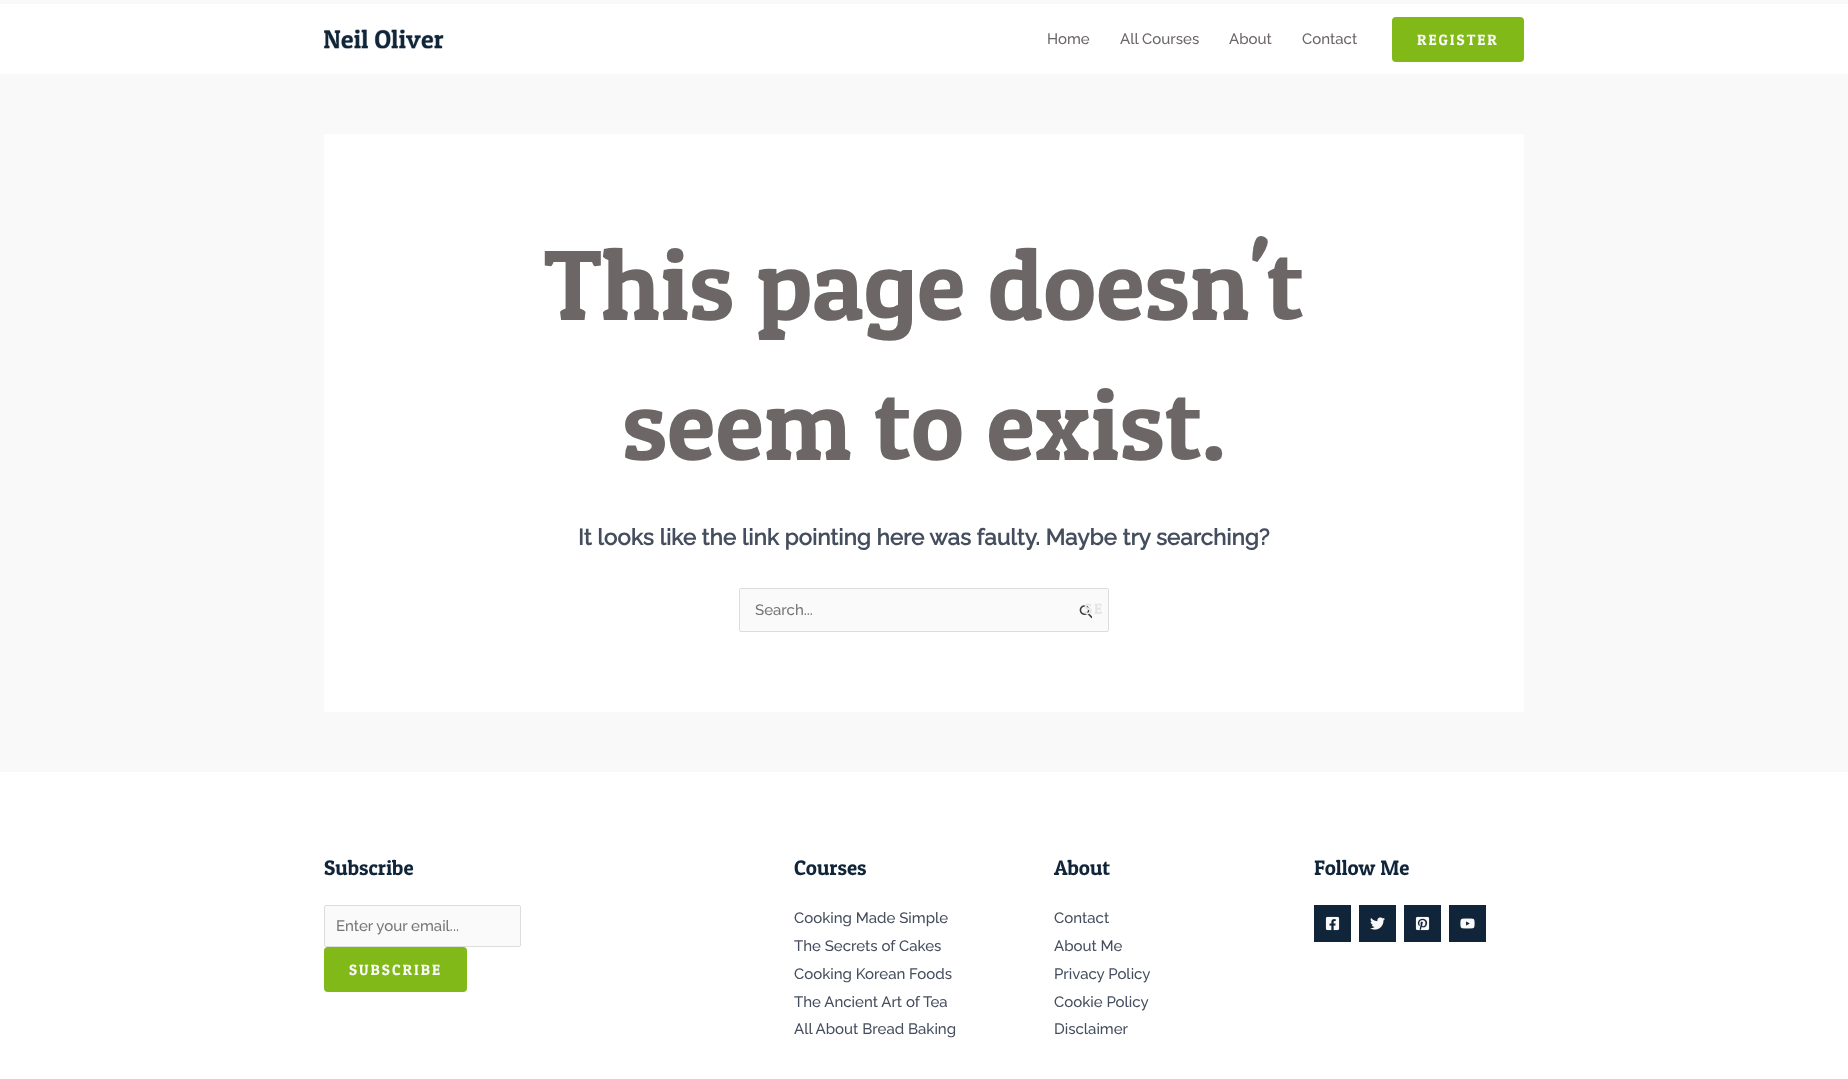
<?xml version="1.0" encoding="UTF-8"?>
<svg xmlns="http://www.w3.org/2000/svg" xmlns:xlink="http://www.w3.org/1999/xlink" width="1848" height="1079">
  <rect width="100%" height="100%" fill="#f9f9f9" />
  <rect y="4" width="1848" height="70" fill="#ffffff" />
  <image x="324" y="29" width="120" height="20" xlink:href="image1.png" />
  <rect x="1392" y="17" width="132" height="45" rx="4" fill="#80b918" />
  <rect x="324" y="134" width="1200" height="578" fill="#ffffff" />
  <rect x="739.5" y="588.5" width="369" height="43" rx="1.5" fill="#fafafa" stroke="#dddddd" />
  <image x="1079" y="605" width="13" height="14" xlink:href="image2.png" />
  <rect y="772" width="1848" height="307" fill="#ffffff" />
  <rect x="324.5" y="905.5" width="196" height="41" rx="1.5" fill="#fafafa" stroke="#dddddd" />
  <rect x="324" y="947" width="143" height="45" rx="4" fill="#80b918" />
  <rect x="1314" y="905" width="37" height="37" fill="#10253a" />
  <image x="1325" y="916" width="15" height="15" xlink:href="image3.png" />
  <rect x="1359" y="905" width="37" height="37" fill="#10253a" />
  <image x="1370" y="917" width="15" height="13" xlink:href="image4.png" />
  <rect x="1404" y="905" width="37" height="37" fill="#10253a" />
  <image x="1415" y="916" width="15" height="15" xlink:href="image5.png" />
  <rect x="1449" y="905" width="37" height="37" fill="#10253a" />
  <image x="1460" y="918" width="15" height="11" xlink:href="image6.png" />
  <text x="1047" y="44" style="font-family: Raleway; font-size: 15px; font-weight: 100; fill: #6c6666">Home</text>
  <text x="1120" y="44" style="font-family: Raleway; font-size: 15px; font-weight: 100; fill: #6c6666">All Courses</text>
  <text x="1229" y="44" style="font-family: Raleway; font-size: 15px; font-weight: 100; fill: #6c6666">About</text>
  <text x="1302" y="44" style="font-family: Raleway; font-size: 15px; font-weight: 100; fill: #6c6666">Contact</text>
  <text x="1417" y="45" style="font-family: Patua One; font-size: 15px; letter-spacing: 2px; fill: #f9f9f9">REGISTER</text>
  <text x="544" y="320" style="font-family: Patua One; font-size: 100px; fill: #6c6666">This page doesn't</text>
  <text x="622" y="460" style="font-family: Patua One; font-size: 100px; fill: #6c6666">seem to exist.</text>
  <text x="578" y="545" style="font-family: Raleway; font-size: 22.5px; font-weight: bold; fill: #454e5e">It looks like the link pointing here was faulty. Maybe try searching?</text>
  <text x="755" y="615" style="font-family: Raleway; font-size: 15px; font-weight: 100; fill: #757575">Search...</text>
  <text x="1084" y="614" style="font-family: Patua One; font-size: 15px; letter-spacing: 2px; fill: #e5e5e5">SE</text>
  <text x="324" y="875" style="font-family: Patua One; font-size: 21px; fill: #10253a">Subscribe</text>
  <text x="336" y="931" style="font-family: Raleway; font-size: 15px; font-weight: 100; fill: #757575">Enter your email...</text>
  <text x="349" y="975" style="font-family: Patua One; font-size: 15px; letter-spacing: 2px; fill: #f9f9f9">SUBSCRIBE</text>
  <text x="794" y="875" style="font-family: Patua One; font-size: 21px; fill: #10253a">Courses</text>
  <text x="794" y="923" style="font-family: Raleway; font-size: 15px; font-weight: 100; fill: #454e5e">Cooking Made Simple</text>
  <text x="794" y="951" style="font-family: Raleway; font-size: 15px; font-weight: 100; fill: #454e5e">The Secrets of Cakes</text>
  <text x="794" y="979" style="font-family: Raleway; font-size: 15px; font-weight: 100; fill: #454e5e">Cooking Korean Foods</text>
  <text x="794" y="1007" style="font-family: Raleway; font-size: 15px; font-weight: 100; fill: #454e5e">The Ancient Art of Tea</text>
  <text x="794" y="1034" style="font-family: Raleway; font-size: 15px; font-weight: 100; fill: #454e5e">All About Bread Baking</text>
  <text x="1054" y="875" style="font-family: Patua One; font-size: 21px; fill: #10253a">About</text>
  <text x="1054" y="923" style="font-family: Raleway; font-size: 15px; font-weight: 100; fill: #454e5e">Contact</text>
  <text x="1054" y="951" style="font-family: Raleway; font-size: 15px; font-weight: 100; fill: #454e5e">About Me</text>
  <text x="1054" y="979" style="font-family: Raleway; font-size: 15px; font-weight: 100; fill: #454e5e">Privacy Policy</text>
  <text x="1054" y="1007" style="font-family: Raleway; font-size: 15px; font-weight: 100; fill: #454e5e">Cookie Policy</text>
  <text x="1054" y="1034" style="font-family: Raleway; font-size: 15px; font-weight: 100; fill: #454e5e">Disclaimer</text>
  <text x="1314" y="875" style="font-family: Patua One; font-size: 21px; fill: #10253a">Follow Me</text>
</svg>
